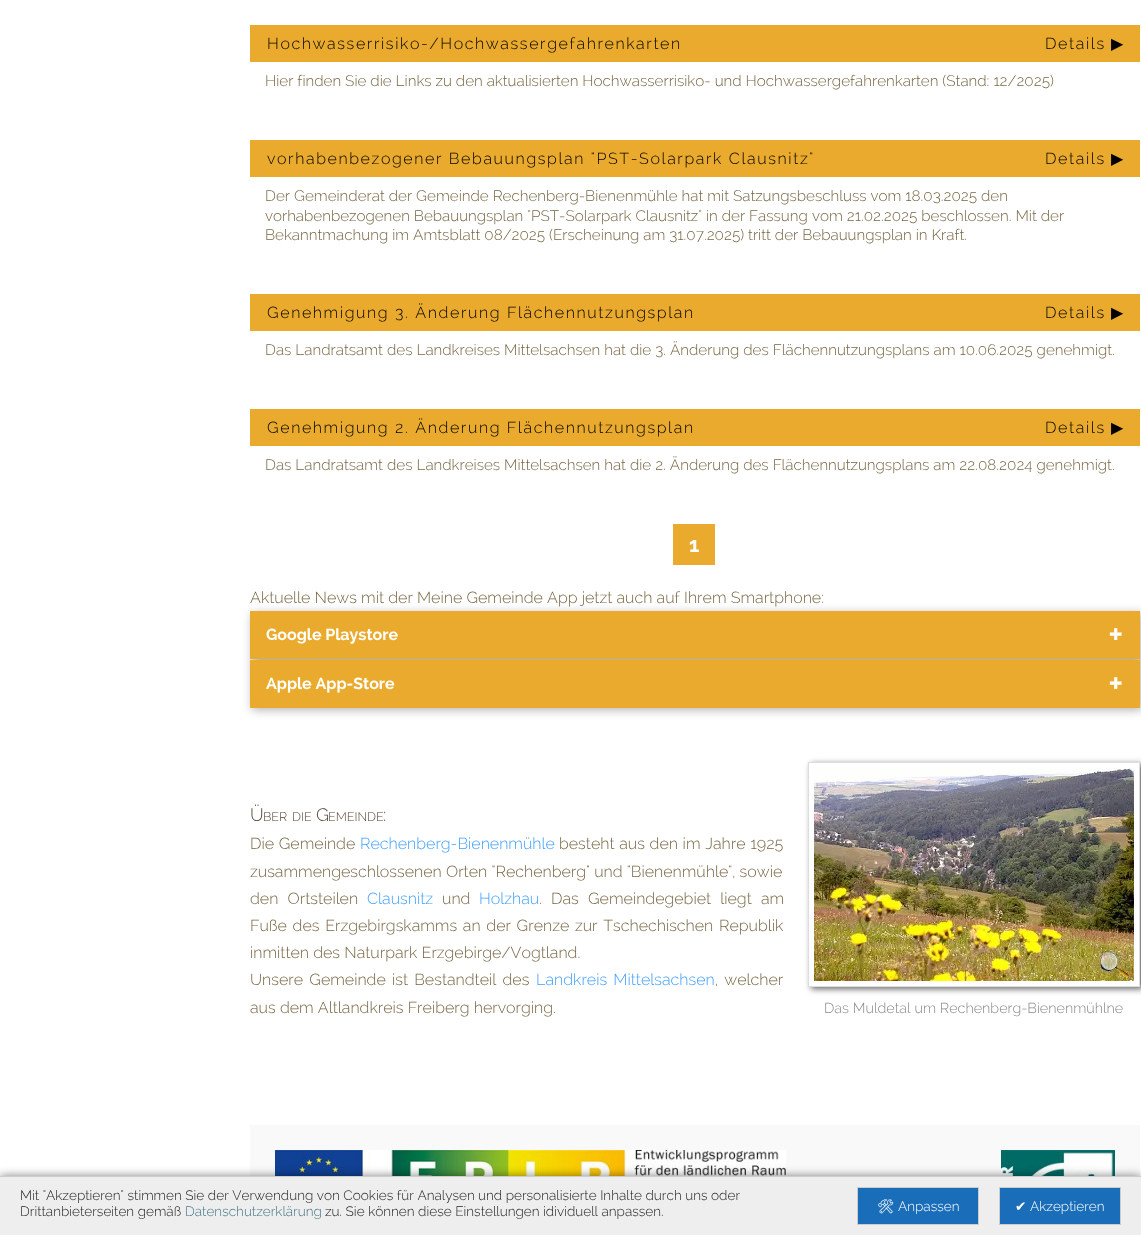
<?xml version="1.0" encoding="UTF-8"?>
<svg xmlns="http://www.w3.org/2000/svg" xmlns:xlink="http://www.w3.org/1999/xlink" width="1141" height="1235">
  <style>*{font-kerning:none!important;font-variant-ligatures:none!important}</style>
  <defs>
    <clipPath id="clip1"><path d="M 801 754 h 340 v 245 h -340 z m 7 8 h 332 v 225 h -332 z" clip-rule="evenodd" /></clipPath>
  </defs>
  <rect width="100%" height="100%" fill="#ffffff" />
  <rect x="250" y="25" width="890" height="37" fill="#e9aa2e" />
  <rect x="250" y="140" width="890" height="37" fill="#e9aa2e" />
  <rect x="250" y="294" width="890" height="37" fill="#e9aa2e" />
  <rect x="250" y="409" width="890" height="37" fill="#e9aa2e" />
  <rect x="673" y="524" width="42" height="41" fill="#e9aa2e" />
  <rect x="252" y="613" width="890" height="97" fill="#000000" fill-opacity="0.3" filter="blur(5px)" />
  <rect x="250" y="611" width="890" height="48" fill="#e9aa2e" />
  <rect x="250" y="660" width="890" height="48" fill="#e9aa2e" />
  <g clip-path="url(#clip1)">
    <rect x="811" y="764" width="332" height="225" fill="#666666" filter="blur(3px)" />
  </g>
  <rect x="808.5" y="762.5" width="331" height="224" fill="none" stroke="#dddddd" />
  <image x="814" y="768" width="320" height="213" xlink:href="image1.png" />
  <rect x="250" y="1125" width="890" height="51" fill="#f9f9f9" />
  <image x="275" y="1150" width="511" height="26" xlink:href="image2.png" />
  <image x="1001" y="1150" width="114" height="26" xlink:href="image3.png" />
  <rect y="1176" width="1141" height="59" fill="#000000" fill-opacity="0.5" filter="blur(5px)" />
  <rect y="1177" width="1141" height="58" fill="#eeeeee" />
  <rect y="1176" width="1141" height="1" fill="#cccccc" />
  <rect x="857.5" y="1187.5" width="121" height="37" fill="#1a6eb9" stroke="#cccccc" />
  <rect x="999.5" y="1187.5" width="121" height="37" fill="#1a6eb9" stroke="#cccccc" />
  <text x="267" y="49" style="font-family: Raleway; font-size: 16px; font-weight: 300; letter-spacing: 1.6px; fill: #000000">Hochwasserrisiko-/Hochwassergefahrenkarten</text>
  <text x="1045" y="49" style="font-family: Raleway; font-size: 16px; font-weight: 300; letter-spacing: 1.6px; fill: #000000">Details</text>
  <text x="1111" y="49" style="font-family: DejaVu Sans; font-size: 16px; letter-spacing: 1.6px; fill: #000000">▶</text>
  <text x="265" y="86" style="font-family: Raleway; font-size: 15.2px; font-weight: 300; fill: #776644">Hier finden Sie die Links zu den aktualisierten Hochwasserrisiko- und Hochwassergefahrenkarten (Stand: 12/2025)</text>
  <text x="267" y="164" style="font-family: Raleway; font-size: 16px; font-weight: 300; letter-spacing: 1.6px; fill: #000000">vorhabenbezogener Bebauungsplan "PST-Solarpark Clausnitz"</text>
  <text x="1045" y="164" style="font-family: Raleway; font-size: 16px; font-weight: 300; letter-spacing: 1.6px; fill: #000000">Details</text>
  <text x="1111" y="164" style="font-family: DejaVu Sans; font-size: 16px; letter-spacing: 1.6px; fill: #000000">▶</text>
  <text x="265" y="201" style="font-family: Raleway; font-size: 15.2px; font-weight: 300; fill: #776644">Der Gemeinderat der Gemeinde Rechenberg-Bienenmühle hat mit Satzungsbeschluss vom 18.03.2025 den</text>
  <text x="265" y="221" style="font-family: Raleway; font-size: 15.2px; font-weight: 300; fill: #776644">vorhabenbezogenen Bebauungsplan "PST-Solarpark Clausnitz" in der Fassung</text>
  <text x="812" y="221" style="font-family: Raleway; font-size: 15.2px; font-weight: 300; fill: #776644">vom 21.02.2025 beschlossen. Mit der</text>
  <text x="265" y="240" style="font-family: Raleway; font-size: 15.2px; font-weight: 300; fill: #776644">Bekanntmachung im Amtsblatt 08/2025 (Erscheinung am 31.07.2025) tritt der Bebauungsplan in Kraft.</text>
  <text x="267" y="318" style="font-family: Raleway; font-size: 16px; font-weight: 300; letter-spacing: 1.6px; fill: #000000">Genehmigung 3. Änderung Flächennutzungsplan</text>
  <text x="1045" y="318" style="font-family: Raleway; font-size: 16px; font-weight: 300; letter-spacing: 1.6px; fill: #000000">Details</text>
  <text x="1111" y="318" style="font-family: DejaVu Sans; font-size: 16px; letter-spacing: 1.6px; fill: #000000">▶</text>
  <text x="265" y="355" style="font-family: Raleway; font-size: 15.2px; font-weight: 300; fill: #776644">Das Landratsamt des Landkreises Mittelsachsen hat die 3. Änderung des Flächennutzungsplans am 10.06.2025 genehmigt.</text>
  <text x="267" y="433" style="font-family: Raleway; font-size: 16px; font-weight: 300; letter-spacing: 1.6px; fill: #000000">Genehmigung 2. Änderung Flächennutzungsplan</text>
  <text x="1045" y="433" style="font-family: Raleway; font-size: 16px; font-weight: 300; letter-spacing: 1.6px; fill: #000000">Details</text>
  <text x="1111" y="433" style="font-family: DejaVu Sans; font-size: 16px; letter-spacing: 1.6px; fill: #000000">▶</text>
  <text x="265" y="470" style="font-family: Raleway; font-size: 15.2px; font-weight: 300; fill: #776644">Das Landratsamt des Landkreises Mittelsachsen hat die 2. Änderung des Flächennutzungsplans am 22.08.2024 genehmigt.</text>
  <text x="689" y="552" style="font-family: Raleway; font-size: 21px; font-weight: bold; letter-spacing: 2px; fill: #ffffff">1</text>
  <text x="250" y="603" style="font-family: Raleway; font-size: 16px; font-weight: 300; fill: #776644">Aktuelle News mit der Meine Gemeinde App jetzt auch auf Ihrem Smartphone:</text>
  <text x="266" y="640" style="font-family: Raleway; font-size: 16px; font-weight: bold; fill: #ffffff">Google Playstore</text>
  <text x="1109" y="640" style="font-family: DejaVu Sans; font-size: 16px; fill: #ffffff">✚</text>
  <text x="266" y="689" style="font-family: Raleway; font-size: 16px; font-weight: bold; fill: #ffffff">Apple App-Store</text>
  <text x="1109" y="689" style="font-family: DejaVu Sans; font-size: 16px; fill: #ffffff">✚</text>
  <text x="250" y="821" style="font-family: Raleway; font-size: 18px; font-weight: 300; fill: #554433">Ü</text>
  <text x="263" y="821" style="font-family: Raleway; font-size: 12.5px; font-weight: 300; fill: #554433">BER</text>
  <text x="292" y="821" style="font-family: Raleway; font-size: 12.5px; font-weight: 300; fill: #554433">DIE</text>
  <text x="316" y="821" style="font-family: Raleway; font-size: 18px; font-weight: 300; fill: #554433">G</text>
  <text x="328" y="821" style="font-family: Raleway; font-size: 12.5px; font-weight: 300; fill: #554433">EMEINDE</text>
  <text x="383" y="821" style="font-family: Raleway; font-size: 18px; font-weight: 300; fill: #554433">:</text>
  <text x="250" y="849" word-spacing="0.5" style="font-family: Raleway; font-size: 16px; font-weight: 300; fill: #776644">Die Gemeinde</text>
  <text x="360" y="849" style="font-family: Raleway; font-size: 16px; font-weight: 300; fill: #409fff">Rechenberg-Bienenmühle</text>
  <text x="559" y="849" word-spacing="0.5" style="font-family: Raleway; font-size: 16px; font-weight: 300; fill: #776644">besteht aus den im Jahre 1925</text>
  <text x="250" y="877" style="font-family: Raleway; font-size: 16px; font-weight: 300; fill: #776644">zusammengeschlossenen</text>
  <text x="446" y="877" style="font-family: Raleway; font-size: 16px; font-weight: 300; fill: #776644">Orten "Rechenberg" und "Bienenmühle", sowie</text>
  <text x="250" y="904" word-spacing="5" style="font-family: Raleway; font-size: 16px; font-weight: 300; fill: #776644">den Ortsteilen</text>
  <text x="367" y="904" style="font-family: Raleway; font-size: 16px; font-weight: 300; fill: #409fff">Clausnitz</text>
  <text x="442" y="904" style="font-family: Raleway; font-size: 16px; font-weight: 300; fill: #776644">und</text>
  <text x="479" y="904" style="font-family: Raleway; font-size: 16px; font-weight: 300; fill: #409fff">Holzhau</text>
  <text x="539" y="904" style="font-family: Raleway; font-size: 16px; font-weight: 300; fill: #776644">.</text>
  <text x="551" y="904" word-spacing="5" style="font-family: Raleway; font-size: 16px; font-weight: 300; fill: #776644">Das Gemeindegebiet liegt am</text>
  <text x="250" y="931" word-spacing="1.5" style="font-family: Raleway; font-size: 16px; font-weight: 300; fill: #776644">Fuße des Erzgebirgskamms an der Grenze zur Tschechischen Republik</text>
  <text x="250" y="958" style="font-family: Raleway; font-size: 16px; font-weight: 300; fill: #776644">inmitten des Naturpark Erzgebirge/Vogtland.</text>
  <text x="250" y="985" word-spacing="2" style="font-family: Raleway; font-size: 16px; font-weight: 300; fill: #776644">Unsere Gemeinde ist Bestandteil des</text>
  <text x="536" y="985" word-spacing="2" style="font-family: Raleway; font-size: 16px; font-weight: 300; fill: #409fff">Landkreis Mittelsachsen</text>
  <text x="715" y="985" word-spacing="2" style="font-family: Raleway; font-size: 16px; font-weight: 300; fill: #776644">, welcher</text>
  <text x="250" y="1013" style="font-family: Raleway; font-size: 16px; font-weight: 300; fill: #776644">aus dem Altlandkreis Freiberg hervorging.</text>
  <text x="824" y="1013" style="font-family: Raleway; font-size: 14.4px; font-weight: 300; fill: #888888">Das Muldetal um Rechenberg-Bienenmühlne</text>
  <text x="20" y="1200" style="font-family: Raleway; font-size: 13.6px; font-weight: 300; fill: #222222">Mit "Akzeptieren" stimmen Sie der Verwendung von Cookies für Analysen</text>
  <text x="478" y="1200" style="font-family: Raleway; font-size: 13.6px; font-weight: 300; fill: #222222">und personalisierte Inhalte durch uns oder</text>
  <text x="20" y="1216" style="font-family: Raleway; font-size: 13.6px; font-weight: 300; fill: #222222">Drittanbieterseiten gemäß</text>
  <text x="185" y="1216" style="font-family: Raleway; font-size: 13.6px; font-weight: 300; fill: #447788">Datenschutzerklärung</text>
  <text x="325" y="1216" style="font-family: Raleway; font-size: 13.6px; font-weight: 300; fill: #222222">zu. Sie können diese Einstellungen idividuell anpassen.</text>
  <text x="877" y="1211" style="font-family: Noto Emoji; font-size: 13.6px; font-weight: 500; fill: #ffffff">🛠</text>
  <text x="898" y="1211" style="font-family: Raleway; font-size: 13.6px; font-weight: 300; fill: #ffffff">Anpassen</text>
  <text x="1015" y="1211" style="font-family: DejaVu Sans; font-size: 13.6px; fill: #ffffff">✔</text>
  <text x="1030" y="1211" style="font-family: Raleway; font-size: 13.6px; font-weight: 300; fill: #ffffff">Akzeptieren</text>
</svg>
